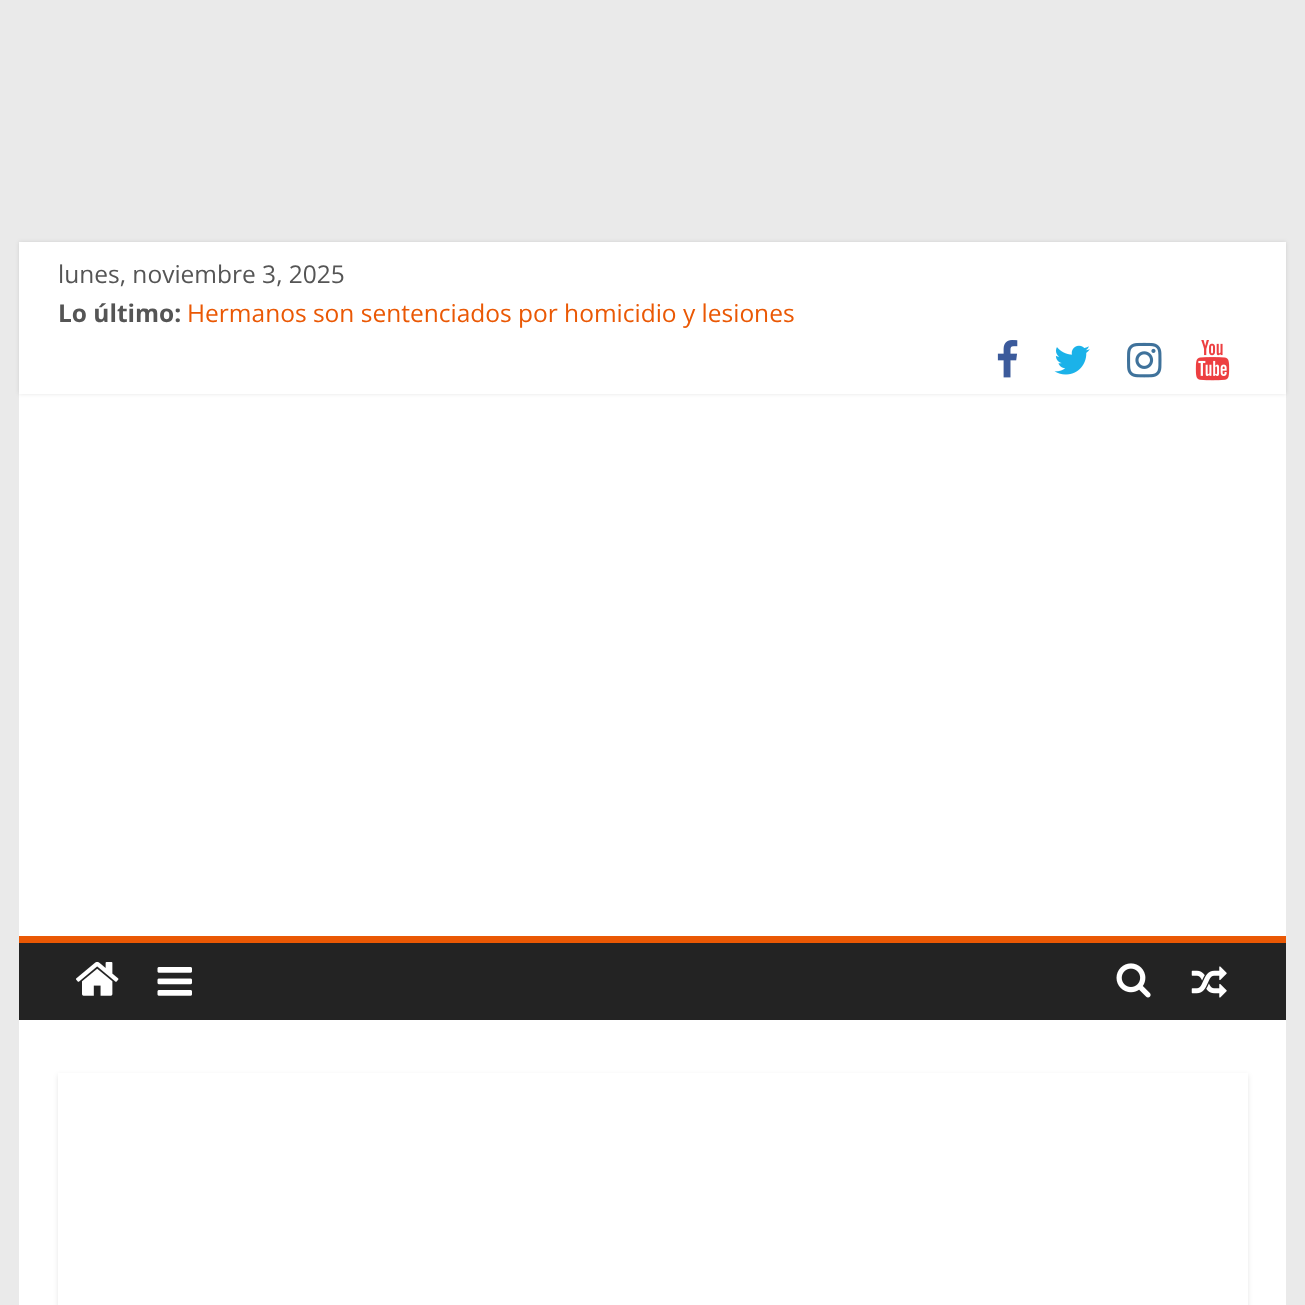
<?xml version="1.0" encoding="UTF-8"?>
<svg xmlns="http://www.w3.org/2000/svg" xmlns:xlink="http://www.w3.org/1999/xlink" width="1305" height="1305">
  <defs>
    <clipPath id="clip1"><path d="M 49 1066 h 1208 v 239 h -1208 z m 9 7 h 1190 v 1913 h -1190 z" clip-rule="evenodd" /></clipPath>
  </defs>
  <rect width="100%" height="100%" fill="#eaeaea" />
  <rect x="19" y="394" width="1267" height="542" fill="#ffffff" />
  <rect x="19" y="242" width="1267" height="152" fill="#000000" fill-opacity="0.1" filter="blur(2px)" />
  <rect x="19" y="242" width="1267" height="152" fill="#ffffff" />
  <image x="997" y="340" width="21" height="38" xlink:href="image1.png" />
  <image x="1054" y="345" width="36" height="30" xlink:href="image2.png" />
  <image x="1127" y="342" width="35" height="36" xlink:href="image3.png" />
  <image x="1195" y="340" width="35" height="41" xlink:href="image4.png" />
  <rect x="19" y="943" width="1267" height="77" fill="#232323" />
  <rect x="19" y="936" width="1267" height="7" fill="#ea5804" />
  <image x="76" y="961" width="43" height="35" xlink:href="image5.png" />
  <image x="157" y="967" width="35" height="29" xlink:href="image6.png" />
  <image x="1116" y="963" width="35" height="35" xlink:href="image7.png" />
  <image x="1191" y="966" width="36" height="32" xlink:href="image8.png" />
  <rect x="19" y="1020" width="1267" height="285" fill="#ffffff" />
  <g clip-path="url(#clip1)">
    <rect x="58" y="1075" width="1190" height="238" fill="#000000" fill-opacity="0.1" filter="blur(2.5px)" />
  </g>
  <text x="58" y="283" style="font-family: Open Sans; font-size: 24.5px; fill: #555555">lunes, noviembre 3, 2025</text>
  <text x="58" y="322" style="font-family: Open Sans; font-size: 24.5px; font-weight: bold; fill: #555555">Lo último:</text>
  <text x="187" y="322" style="font-family: Open Sans; font-size: 24.5px; fill: #ea5804">Hermanos son sentenciados por homicidio y lesiones</text>
</svg>
